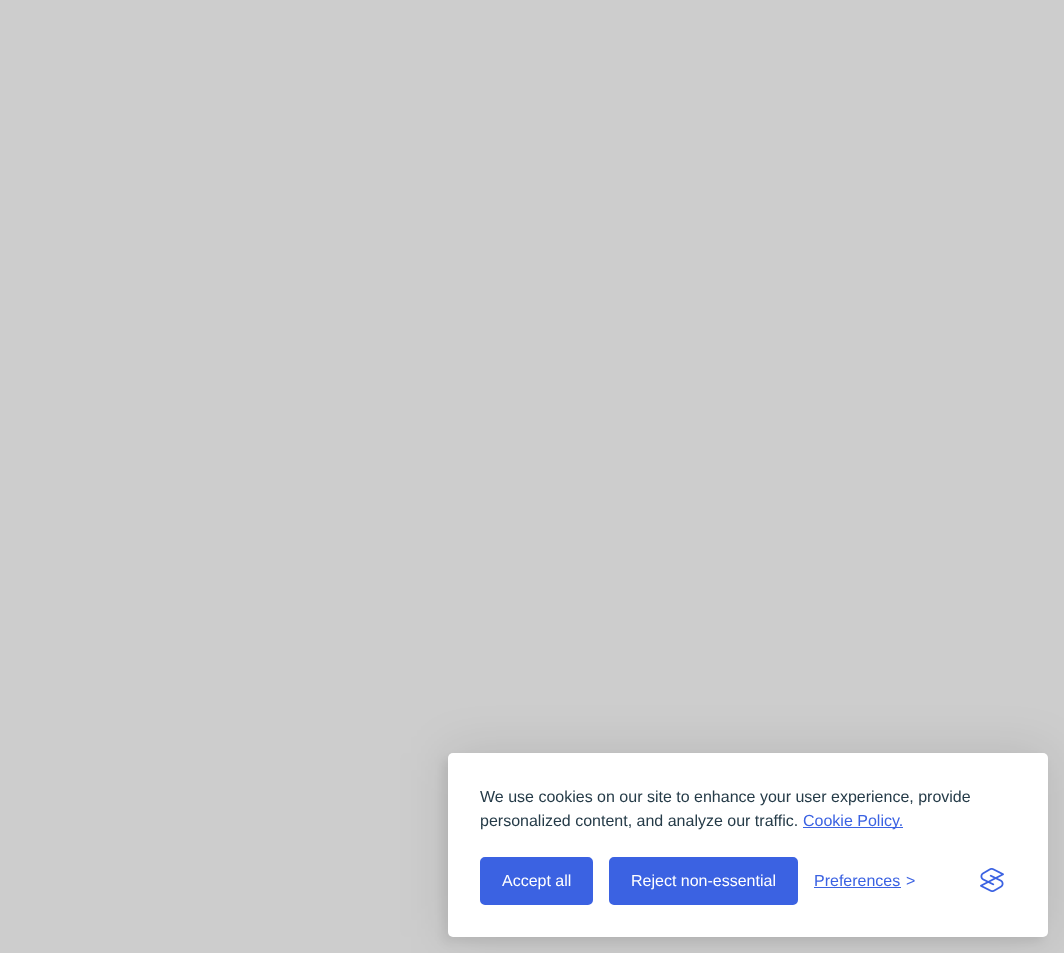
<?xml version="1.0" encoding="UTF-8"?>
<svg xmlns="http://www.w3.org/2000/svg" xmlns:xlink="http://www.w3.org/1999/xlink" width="1064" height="953">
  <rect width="100%" height="100%" fill="#cdcdcd" />
  <rect x="448" y="753" width="600" height="184" rx="5" fill="#000000" fill-opacity="0.1" filter="blur(25px)" />
  <rect x="443" y="758" width="600" height="184" rx="5" fill="#000000" fill-opacity="0.07" filter="blur(5px)" />
  <rect x="448" y="753" width="600" height="184" rx="5" fill="#ffffff" />
  <rect x="803" y="827" width="100" height="1" fill="#3b62e2" />
  <rect x="481" y="858" width="111" height="46" rx="4" fill="#3b62e2" stroke="#3b62e2" stroke-width="2" />
  <rect x="610" y="858" width="187" height="46" rx="4" fill="#3b62e2" stroke="#3b62e2" stroke-width="2" />
  <rect x="814" y="887" width="87" height="1" fill="#3b62e2" />
  <image x="980" y="868" width="24" height="24" xlink:href="image1.png" />
  <text x="480" y="802" style="font-family: Liberation Sans; font-size: 16px; fill: #253b48">We use cookies on our site to enhance your user experience, provide</text>
  <text x="480" y="826" style="font-family: Liberation Sans; font-size: 16px; fill: #253b48">personalized content, and analyze our traffic.</text>
  <text x="803" y="826" style="font-family: Liberation Sans; font-size: 16px; fill: #3b62e2">Cookie Policy.</text>
  <text x="502" y="886" style="font-family: Liberation Sans; font-size: 16px; fill: #ffffff">Accept all</text>
  <text x="631" y="886" style="font-family: Liberation Sans; font-size: 16px; fill: #ffffff">Reject non-essential</text>
  <text x="814" y="886" style="font-family: Liberation Sans; font-size: 16px; fill: #3b62e2">Preferences</text>
  <text x="906" y="886" style="font-family: Liberation Sans; font-size: 16px; fill: #3b62e2">&gt;</text>
</svg>
